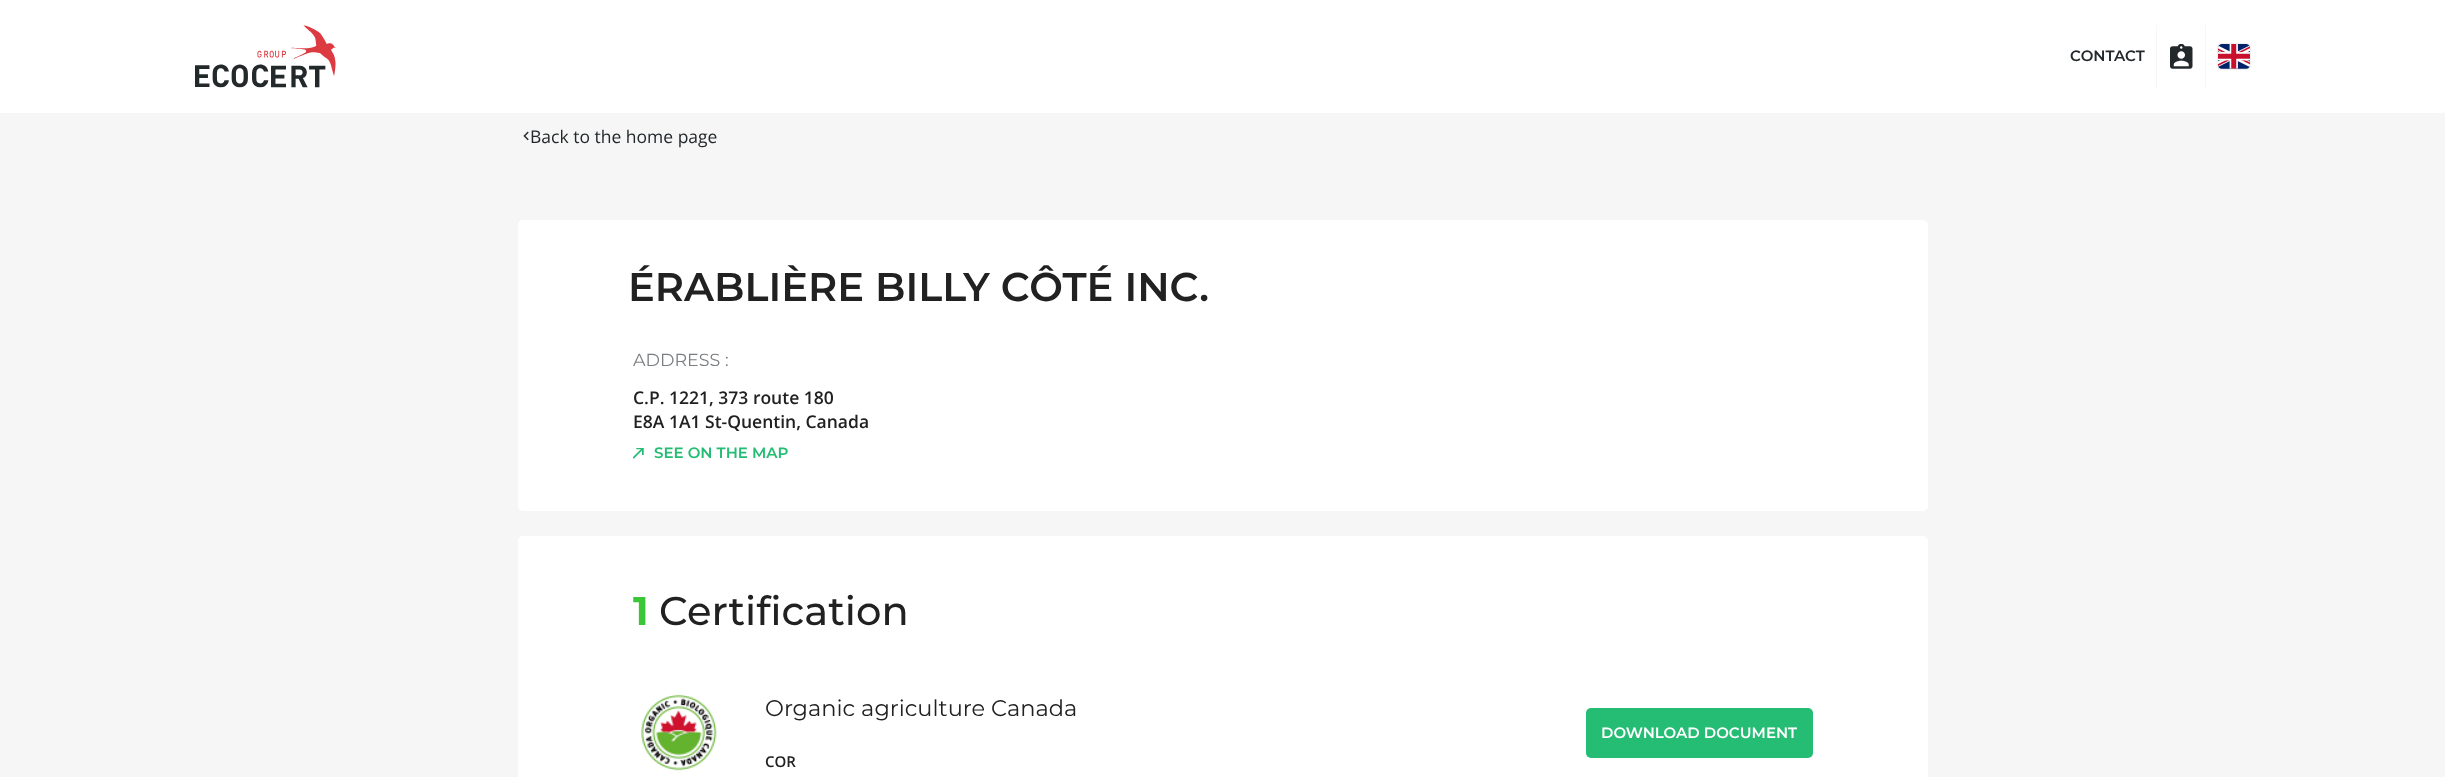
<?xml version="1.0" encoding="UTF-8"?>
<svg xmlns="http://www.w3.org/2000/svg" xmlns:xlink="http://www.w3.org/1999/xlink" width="2445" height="777">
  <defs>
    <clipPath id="clip1"><path d="M 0 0 h 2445 v 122 h -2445 z m 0 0 h 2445 v 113 h -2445 z" clip-rule="evenodd" /></clipPath>
    <clipPath id="clip2"><path d="M 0 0 h 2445 v 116 h -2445 z m 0 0 h 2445 v 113 h -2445 z" clip-rule="evenodd" /></clipPath>
  </defs>
  <rect width="100%" height="100%" fill="#ffffff" />
  <g clip-path="url(#clip1)">
    <rect y="3" width="2445" height="112" fill="#000000" fill-opacity="0.13" filter="blur(2px)" />
  </g>
  <g clip-path="url(#clip2)">
    <rect width="2445" height="113" fill="#000000" fill-opacity="0.1" filter="blur(0.5px)" />
  </g>
  <image x="195" y="25" width="141" height="63" xlink:href="image1.png" />
  <rect x="2156" y="25" width="1" height="63" fill="#f7f7f7" />
  <image x="2170" y="44" width="23" height="25" xlink:href="image2.png" />
  <rect x="2205" y="25" width="1" height="63" fill="#f7f7f7" />
  <rect x="2218" y="44" width="32" height="25" rx="4" fill="#d3d3d3" filter="blur(1px)" />
  <image x="2218" y="44" width="32" height="25" xlink:href="image3.png" />
  <rect y="113" width="2445" height="664" fill="#f6f6f6" />
  <image x="523" y="131" width="6" height="10" xlink:href="image4.png" />
  <rect x="518" y="220" width="1410" height="291" rx="5" fill="#ffffff" />
  <image x="633" y="448" width="11" height="11" xlink:href="image5.png" />
  <rect x="518" y="536" width="1410" height="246" rx="5" fill="#ffffff" />
  <image x="641" y="694" width="76" height="77" xlink:href="image6.png" />
  <rect x="1586" y="708" width="227" height="50" rx="5" fill="#25bc74" />
  <text x="2070" y="61" style="font-family: Montserrat; font-size: 15px; font-weight: 100; fill: #23282b">CONTACT</text>
  <text x="530" y="143" style="font-family: Open Sans; font-size: 17.5px; fill: #23282b">Back to the home page</text>
  <text x="628" y="301" style="font-family: Montserrat; font-size: 40px; font-weight: 100; fill: #212121">ÉRABLIÈRE BILLY CÔTÉ INC.</text>
  <text x="633" y="366" style="font-family: 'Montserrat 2'; font-size: 17.5px; font-weight: 100; fill: #7b7e80">ADDRESS :</text>
  <text x="633" y="404" style="font-family: Open Sans; font-size: 17.5px; font-weight: 600; fill: #212121">C.P. 1221, 373 route 180</text>
  <text x="633" y="428" style="font-family: Open Sans; font-size: 17.5px; font-weight: 600; fill: #212121">E8A 1A1 St-Quentin, Canada</text>
  <text x="654" y="458" style="font-family: Montserrat; font-size: 15px; font-weight: 100; fill: #25bc74">SEE ON THE MAP</text>
  <text x="633" y="625" style="font-family: 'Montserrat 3'; font-size: 40px; font-weight: 100; fill: #3bc539">1</text>
  <text x="659" y="625" style="font-family: 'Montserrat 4'; font-size: 40px; font-weight: 100; fill: #212121">Certification</text>
  <text x="765" y="716" style="font-family: 'Montserrat 2'; font-size: 22.5px; font-weight: 100; fill: #212121">Organic agriculture Canada</text>
  <text x="765" y="767" style="font-family: Open Sans; font-size: 15px; font-weight: 600; fill: #212121">COR</text>
  <text x="1601" y="738" style="font-family: Montserrat; font-size: 15px; font-weight: 100; fill: #ffffff">DOWNLOAD DOCUMENT</text>
</svg>
